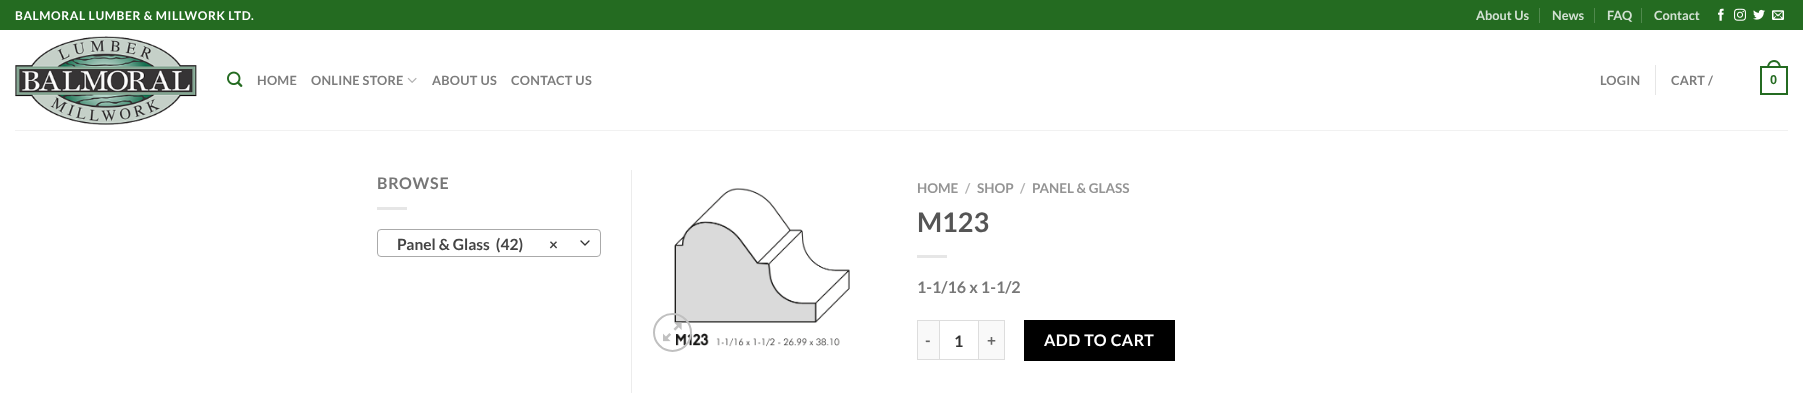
<?xml version="1.0" encoding="UTF-8"?>
<svg xmlns="http://www.w3.org/2000/svg" xmlns:xlink="http://www.w3.org/1999/xlink" width="1803" height="393">
  <rect width="100%" height="100%" fill="#ffffff" />
  <rect width="1803" height="30" fill="#246b21" />
  <rect x="1539" y="8" width="1" height="15" fill="#50894d" />
  <rect x="1594" y="8" width="1" height="15" fill="#50894d" />
  <rect x="1641" y="8" width="1" height="15" fill="#50894d" />
  <image x="1718" y="8" width="6" height="13" xlink:href="image1.png" />
  <image x="1734" y="8" width="12" height="13" xlink:href="image2.png" />
  <image x="1753" y="9" width="12" height="11" xlink:href="image3.png" />
  <image x="1772" y="10" width="12" height="10" xlink:href="image4.png" />
  <image x="15" y="36" width="182" height="89" xlink:href="image5.png" />
  <image x="227" y="71" width="16" height="16" xlink:href="image6.png" />
  <image x="407" y="77" width="10" height="6" xlink:href="image7.png" />
  <rect x="1655" y="65" width="1" height="30" fill="#e6e6e6" />
  <rect x="1761" y="67" width="26" height="27" fill="none" stroke="#246b21" stroke-width="2" />
  <path d="M 1774 60 c 4.5 0 7 4 7 8 h -14 c 0 -4 2.5 -8 7 -8 z m 0 2 c 3.5 0 5 3 5 6 h -10 c 0 -3 1.5 -6 5 -6 z" fill="#246b21" fill-rule="evenodd" />
  <rect x="15" y="130" width="1773" height="1" fill="#f1f1f1" />
  <rect x="631" y="170" width="1" height="223" fill="#ececec" />
  <rect x="377" y="207" width="30" height="3" fill="#e6e6e6" />
  <path d="M 581 241 l 4 4 l 4 -4" fill="none" stroke="#333333" stroke-width="1.3" stroke-linecap="round" stroke-linejoin="round" />
  <rect x="377.5" y="229.5" width="223" height="27" rx="3.5" fill="none" stroke="#aaaaaa" />
  <image x="674" y="188" width="176" height="159" xlink:href="image9.png" />
  <circle cx="672.5" cy="332.5" r="18.5" fill="none" stroke="#c0c0c0" stroke-width="2" />
  <image x="663" y="322" width="19" height="20" xlink:href="image8.png" />
  <rect x="917" y="255" width="30" height="3" fill="#e6e6e6" />
  <rect x="918" y="321" width="21" height="38" fill="#f9f9f9" />
  <rect x="917" y="320" width="22" height="1" fill="#dddddd" />
  <rect x="917" y="359" width="22" height="1" fill="#dddddd" />
  <rect x="917" y="320" width="1" height="40" fill="#dddddd" />
  <rect x="939.5" y="320.5" width="39" height="39" fill="none" stroke="#dddddd" />
  <rect x="979" y="321" width="25" height="38" fill="#f9f9f9" />
  <rect x="979" y="320" width="26" height="1" fill="#dddddd" />
  <rect x="1004" y="320" width="1" height="40" fill="#dddddd" />
  <rect x="979" y="359" width="26" height="1" fill="#dddddd" />
  <rect x="1024" y="320" width="151" height="41" fill="#000000" />
  <text x="15" y="20" style="font-family: Lato; font-size: 12px; font-weight: bold; letter-spacing: 0.6px; fill: #ffffff">BALMORAL LUMBER &amp; MILLWORK LTD.</text>
  <text x="1476" y="20" style="font-family: Lato; font-size: 12.75px; font-weight: bold; fill: #d3e1d3">About Us</text>
  <text x="1552" y="20" style="font-family: Lato; font-size: 12.75px; font-weight: bold; fill: #d3e1d3">News</text>
  <text x="1607" y="20" style="font-family: Lato; font-size: 12.75px; font-weight: bold; fill: #d3e1d3">FAQ</text>
  <text x="1654" y="20" style="font-family: Lato; font-size: 12.75px; font-weight: bold; fill: #d3e1d3">Contact</text>
  <text x="257" y="85" style="font-family: Lato; font-size: 12.75px; font-weight: bold; letter-spacing: 0.25px; fill: #7d7d7d">HOME</text>
  <text x="311" y="85" style="font-family: Lato; font-size: 12.75px; font-weight: bold; letter-spacing: 0.25px; fill: #7d7d7d">ONLINE STORE</text>
  <text x="432" y="85" style="font-family: Lato; font-size: 12.75px; font-weight: bold; letter-spacing: 0.25px; fill: #7d7d7d">ABOUT US</text>
  <text x="511" y="85" style="font-family: Lato; font-size: 12.75px; font-weight: bold; letter-spacing: 0.25px; fill: #7d7d7d">CONTACT US</text>
  <text x="1600" y="85" style="font-family: Lato; font-size: 12.75px; font-weight: bold; letter-spacing: 0.25px; fill: #7d7d7d">LOGIN</text>
  <text x="1671" y="85" style="font-family: Lato; font-size: 12.75px; font-weight: bold; letter-spacing: 0.25px; fill: #7d7d7d">CART /</text>
  <text x="1770" y="84" style="font-family: Liberation Sans; font-size: 12.75px; font-weight: bold; letter-spacing: 0.25px; fill: #246b21">0</text>
  <text x="377" y="189" style="font-family: Lato; font-size: 16px; font-weight: bold; letter-spacing: 0.75px; fill: #777777">BROWSE</text>
  <text x="397" y="250" style="font-family: Lato; font-size: 15.5px; font-weight: bold; fill: #444444" xml:space="preserve">Panel &amp; Glass  (42)</text>
  <text x="549" y="250" style="font-family: Lato; font-size: 15.5px; font-weight: bold; fill: #444444">×</text>
  <text x="917" y="193" style="font-family: Lato; font-size: 13.5px; font-weight: bold; fill: #949494">HOME</text>
  <text x="965" y="193" style="font-family: Lato; font-size: 13.5px; font-weight: bold; fill: #b2b2b2">/</text>
  <text x="977" y="193" style="font-family: Lato; font-size: 13.5px; font-weight: bold; fill: #949494">SHOP</text>
  <text x="1020" y="193" style="font-family: Lato; font-size: 13.5px; font-weight: bold; fill: #b2b2b2">/</text>
  <text x="1032" y="193" style="font-family: Lato; font-size: 13.5px; font-weight: bold; fill: #949494">PANEL &amp; GLASS</text>
  <text x="917" y="232" style="font-family: Lato; font-size: 27px; font-weight: bold; fill: #555555">M123</text>
  <text x="917" y="293" style="font-family: Lato; font-size: 16px; font-weight: bold; fill: #777777">1-1/16 x 1-1/2</text>
  <text x="925" y="346" style="font-family: Lato; font-size: 15.5px; font-weight: bold; fill: #666666">-</text>
  <text x="954" y="347" style="font-family: Lato; font-size: 16px; font-weight: bold; fill: #333333">1</text>
  <text x="987" y="346" style="font-family: Lato; font-size: 15.5px; font-weight: bold; fill: #666666">+</text>
  <text x="1044" y="346" style="font-family: Lato; font-size: 16px; font-weight: bold; letter-spacing: 0.5px; fill: #ffffff">ADD TO CART</text>
</svg>
